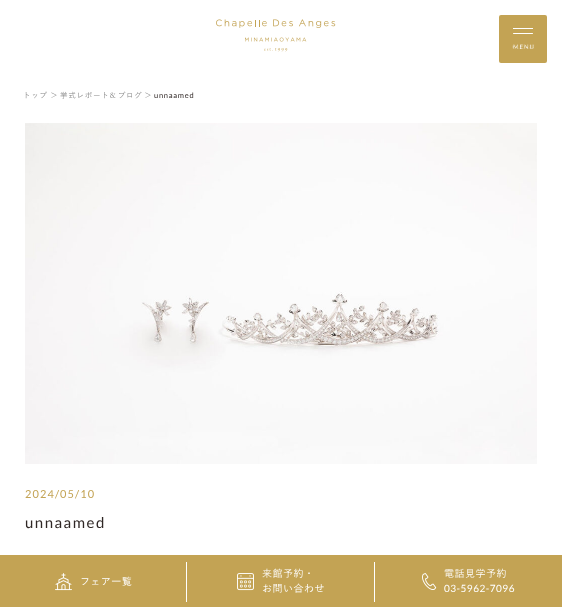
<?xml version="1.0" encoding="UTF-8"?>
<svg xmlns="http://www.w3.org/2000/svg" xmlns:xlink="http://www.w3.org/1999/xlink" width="562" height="607">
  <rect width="100%" height="100%" fill="#ffffff" />
  <image x="216" y="19" width="120" height="33" xlink:href="image1.png" />
  <rect x="499" y="15" width="48" height="48" rx="2" fill="#c3a354" />
  <rect x="513" y="28" width="20" height="1" fill="#ffffff" />
  <rect x="513" y="33" width="20" height="1" rx="0.5" fill="#ffffff" />
  <image x="25" y="123" width="512" height="341" xlink:href="image2.png" />
  <rect y="555" width="562" height="52" fill="#c3a354" />
  <image x="55" y="573" width="17" height="18" xlink:href="image3.png" />
  <rect x="186" y="562" width="1" height="40" fill="#ffffff" />
  <image x="237" y="573" width="17" height="18" xlink:href="image4.png" />
  <rect x="374" y="562" width="1" height="40" fill="#ffffff" />
  <image x="422" y="573" width="15" height="17" xlink:href="image5.png" />
  <text x="513" y="49" style="font-family: 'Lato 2'; font-size: 6px; letter-spacing: 1px; fill: #ffffff">MENU</text>
  <text x="512" y="49" style="font-family: 'Lato 2'; font-size: 6px; letter-spacing: 1px; fill: #ceb474">CLOSE</text>
  <text x="23" y="98" style="font-family: Lato; font-size: 7.5px; font-weight: 500; letter-spacing: 0.75px; fill: #898989">トップ</text>
  <text x="50" y="98" style="font-family: Lato; font-size: 7.5px; letter-spacing: 0.75px; fill: #898989">＞</text>
  <text x="60" y="98" style="font-family: Lato; font-size: 7.5px; font-weight: 500; letter-spacing: 0.75px; fill: #898989">挙式レポート</text>
  <text x="109" y="98" style="font-family: Lato; font-size: 7.5px; letter-spacing: 0.75px; fill: #898989">＆</text>
  <text x="118" y="98" style="font-family: Lato; font-size: 7.5px; font-weight: 500; letter-spacing: 0.75px; fill: #898989">ブログ</text>
  <text x="144" y="98" style="font-family: Lato; font-size: 7.5px; letter-spacing: 0.75px; fill: #898989">＞</text>
  <text x="154" y="98" style="font-family: 'Lato 2'; font-size: 7.5px; letter-spacing: 0.75px; fill: #2f2725">unnaamed</text>
  <text x="25" y="498" style="font-family: 'Lato 2'; font-size: 11px; letter-spacing: 1.1px; fill: #c3a354">2024/05/10</text>
  <text x="25" y="528" style="font-family: 'Lato 2'; font-size: 15px; letter-spacing: 1.5px; fill: #2f2725">unnaamed</text>
  <text x="80" y="585" style="font-family: Lato; font-size: 10px; font-weight: 500; letter-spacing: 0.5px; fill: #ffffff">フェア一覧</text>
  <text x="262" y="577" style="font-family: Lato; font-size: 10px; font-weight: 500; letter-spacing: 0.5px; fill: #ffffff">来館予約</text>
  <text x="304" y="577" style="font-family: Lato; font-size: 10px; letter-spacing: 0.5px; fill: #ffffff">・</text>
  <text x="262" y="592" style="font-family: Lato; font-size: 10px; font-weight: 500; letter-spacing: 0.5px; fill: #ffffff">お問い合わせ</text>
  <text x="444" y="577" style="font-family: Lato; font-size: 10px; font-weight: 500; letter-spacing: 0.5px; fill: #ffffff">電話見学予約</text>
  <text x="444" y="592" style="font-family: 'Lato 2'; font-size: 10px; letter-spacing: 0.5px; fill: #ffffff">03-5962-7096</text>
</svg>
